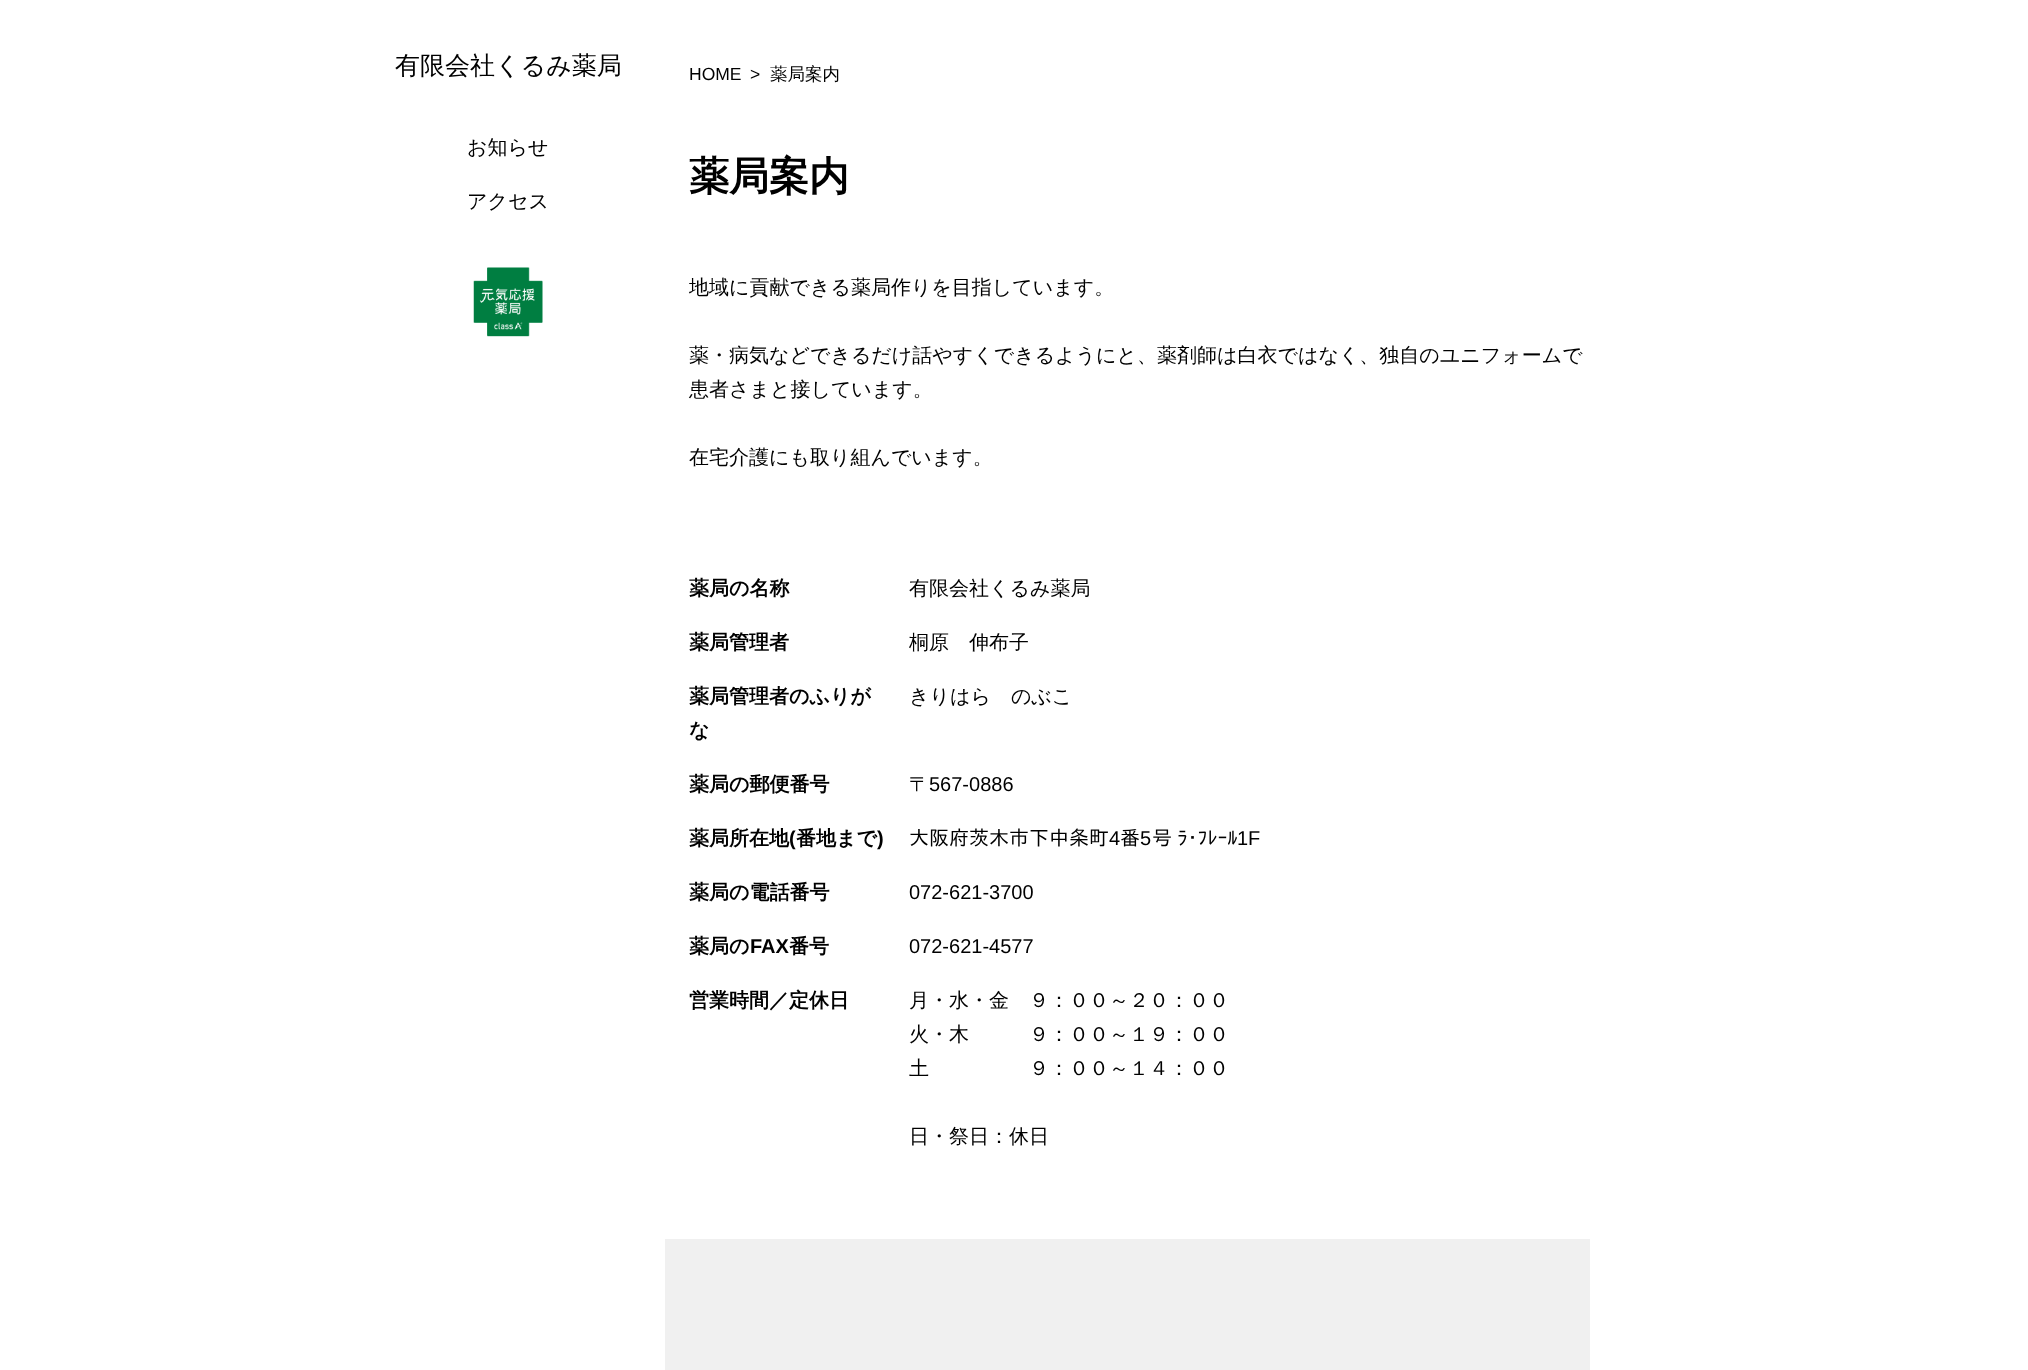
<?xml version="1.0" encoding="UTF-8"?>
<svg xmlns="http://www.w3.org/2000/svg" xmlns:xlink="http://www.w3.org/1999/xlink" width="2028" height="1370">
  <rect width="100%" height="100%" fill="#ffffff" />
  <image x="473" y="267" width="70" height="70" xlink:href="image1.png" />
  <rect x="665" y="1239" width="925" height="131" fill="#f0f0f0" />
  <text x="395" y="74" style="font-family: WenQuanYi Zen Hei; font-size: 25px; font-weight: 500; fill: #000000">有限会社くるみ薬局</text>
  <text x="467" y="154" style="font-family: WenQuanYi Zen Hei; font-size: 20px; font-weight: 500; fill: #000000">お知らせ</text>
  <text x="467" y="208" style="font-family: WenQuanYi Zen Hei; font-size: 20px; font-weight: 500; fill: #000000">アクセス</text>
  <text x="689" y="80" style="font-family: Liberation Sans; font-size: 17.5px; fill: #000000">HOME</text>
  <text x="750" y="80" style="font-family: Liberation Sans; font-size: 17.5px; fill: #000000">&gt;</text>
  <text x="770" y="80" style="font-family: WenQuanYi Zen Hei; font-size: 17.5px; font-weight: 500; fill: #000000">薬局案内</text>
  <text x="689" y="190" style="font-family: WenQuanYi Zen Hei; font-size: 40px; font-weight: bold; fill: #000000">薬局案内</text>
  <text x="689" y="294" style="font-family: WenQuanYi Zen Hei; font-size: 20px; font-weight: 500; fill: #000000">地域に貢献できる薬局作りを目指しています。</text>
  <text x="689" y="362" style="font-family: WenQuanYi Zen Hei; font-size: 20px; font-weight: 500; fill: #000000">薬・病気などできるだけ話やすくできるようにと、薬剤師は白衣ではなく、独自のユニフォームで</text>
  <text x="689" y="396" style="font-family: WenQuanYi Zen Hei; font-size: 20px; font-weight: 500; fill: #000000">患者さまと接しています。</text>
  <text x="689" y="464" style="font-family: WenQuanYi Zen Hei; font-size: 20px; font-weight: 500; fill: #000000">在宅介護にも取り組んでいます。</text>
  <text x="689" y="595" style="font-family: WenQuanYi Zen Hei; font-size: 20px; font-weight: bold; fill: #000000">薬局の名称</text>
  <text x="909" y="595" style="font-family: WenQuanYi Zen Hei; font-size: 20px; font-weight: 500; fill: #000000">有限会社くるみ薬局</text>
  <text x="689" y="649" style="font-family: WenQuanYi Zen Hei; font-size: 20px; font-weight: bold; fill: #000000">薬局管理者</text>
  <text x="909" y="649" style="font-family: WenQuanYi Zen Hei; font-size: 20px; font-weight: 500; fill: #000000">桐原　伸布子</text>
  <text x="689" y="703" style="font-family: WenQuanYi Zen Hei; font-size: 20px; font-weight: bold; fill: #000000">薬局管理者のふりが</text>
  <text x="689" y="737" style="font-family: WenQuanYi Zen Hei; font-size: 20px; font-weight: bold; fill: #000000">な</text>
  <text x="909" y="703" style="font-family: WenQuanYi Zen Hei; font-size: 20px; font-weight: 500; fill: #000000">きりはら　のぶこ</text>
  <text x="689" y="791" style="font-family: WenQuanYi Zen Hei; font-size: 20px; font-weight: bold; fill: #000000">薬局の郵便番号</text>
  <text x="909" y="791" style="font-family: WenQuanYi Zen Hei; font-size: 20px; font-weight: 500; fill: #000000">〒</text>
  <text x="929" y="791" style="font-family: Liberation Sans; font-size: 20px; fill: #000000">567-0886</text>
  <text x="689" y="845" style="font-family: WenQuanYi Zen Hei; font-size: 20px; font-weight: bold; fill: #000000">薬局所在地</text>
  <text x="789" y="845" style="font-family: Liberation Sans; font-size: 20px; font-weight: bold; fill: #000000">(</text>
  <text x="796" y="845" style="font-family: WenQuanYi Zen Hei; font-size: 20px; font-weight: bold; fill: #000000">番地まで</text>
  <text x="877" y="845" style="font-family: Liberation Sans; font-size: 20px; font-weight: bold; fill: #000000">)</text>
  <text x="909" y="845" style="font-family: IPAPGothic; font-size: 20px; fill: #000000">大阪府茨木市下中条町</text>
  <text x="1109" y="845" style="font-family: Liberation Sans; font-size: 20px; fill: #000000">4</text>
  <text x="1120" y="845" style="font-family: IPAPGothic; font-size: 20px; fill: #000000">番</text>
  <text x="1140" y="845" style="font-family: Liberation Sans; font-size: 20px; fill: #000000">5</text>
  <text x="1152" y="845" style="font-family: IPAPGothic; font-size: 20px; fill: #000000">号 ﾗ･ﾌﾚｰﾙ</text>
  <text x="1237" y="845" style="font-family: Liberation Sans; font-size: 20px; fill: #000000">1F</text>
  <text x="689" y="899" style="font-family: WenQuanYi Zen Hei; font-size: 20px; font-weight: bold; fill: #000000">薬局の電話番号</text>
  <text x="909" y="899" style="font-family: Liberation Sans; font-size: 20px; fill: #000000">072-621-3700</text>
  <text x="689" y="953" style="font-family: WenQuanYi Zen Hei; font-size: 20px; font-weight: bold; fill: #000000">薬局の</text>
  <text x="750" y="953" style="font-family: Liberation Sans; font-size: 20px; font-weight: bold; fill: #000000">FAX</text>
  <text x="789" y="953" style="font-family: WenQuanYi Zen Hei; font-size: 20px; font-weight: bold; fill: #000000">番号</text>
  <text x="909" y="953" style="font-family: Liberation Sans; font-size: 20px; fill: #000000">072-621-4577</text>
  <text x="689" y="1007" style="font-family: WenQuanYi Zen Hei; font-size: 20px; font-weight: bold; fill: #000000">営業時間／定休日</text>
  <text x="909" y="1007" style="font-family: WenQuanYi Zen Hei; font-size: 20px; font-weight: 500; fill: #000000">月・水・金　９：００～２０：００</text>
  <text x="909" y="1041" style="font-family: WenQuanYi Zen Hei; font-size: 20px; font-weight: 500; fill: #000000">火・木　　　９：００～１９：００</text>
  <text x="909" y="1075" style="font-family: WenQuanYi Zen Hei; font-size: 20px; font-weight: 500; fill: #000000">土　　　　　９：００～１４：００</text>
  <text x="909" y="1143" style="font-family: WenQuanYi Zen Hei; font-size: 20px; font-weight: 500; fill: #000000">日・祭日：休日</text>
</svg>
